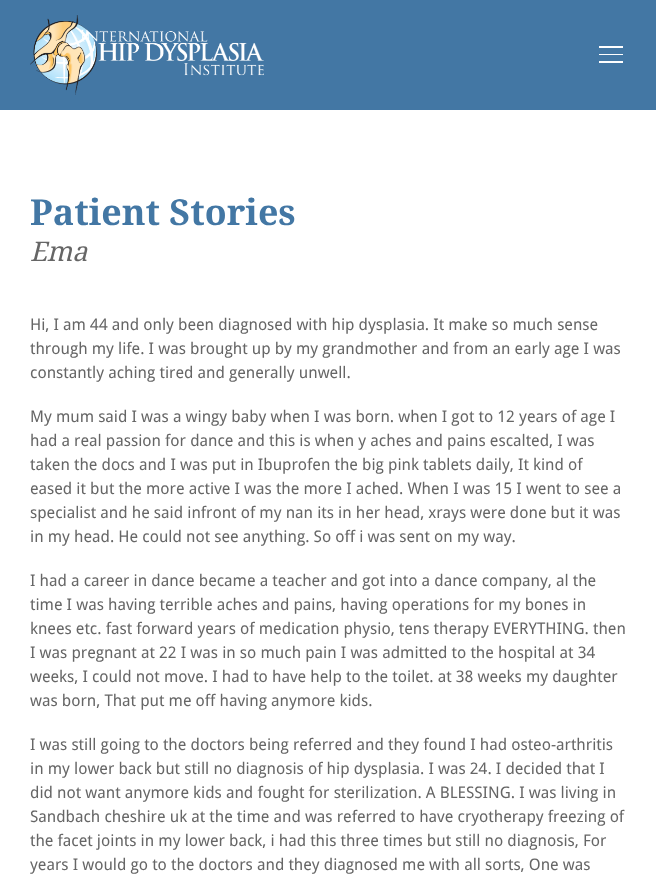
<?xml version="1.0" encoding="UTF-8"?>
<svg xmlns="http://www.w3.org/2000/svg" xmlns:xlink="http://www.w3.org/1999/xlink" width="656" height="884">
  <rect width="100%" height="100%" fill="#ffffff" />
  <rect width="656" height="110" fill="#4377a4" />
  <image x="30" y="15" width="234" height="80" xlink:href="image1.png" />
  <rect x="599" y="46" width="24" height="2" fill="#ffffff" />
  <rect x="599" y="54" width="24" height="1" fill="#ffffff" />
  <rect x="599" y="61" width="24" height="2" fill="#ffffff" />
  <text x="30" y="225" style="font-family: Droid Serif; font-size: 35.75px; font-weight: bold; fill: #4377a4">Patient Stories</text>
  <text x="30" y="261" style="font-family: Droid Serif; font-size: 27px; font-style: italic; fill: #666666">Ema</text>
  <text x="30" y="330" style="font-family: Droid Sans; font-size: 16px; fill: #666666">Hi, I am 44 and only been diagnosed with hip dysplasia. It make so much sense</text>
  <text x="30" y="354" style="font-family: Droid Sans; font-size: 16px; fill: #666666">through my life. I was brought up by my grandmother and from an early age I was</text>
  <text x="30" y="378" style="font-family: Droid Sans; font-size: 16px; fill: #666666">constantly aching tired and generally unwell.</text>
  <text x="30" y="422" style="font-family: Droid Sans; font-size: 16px; fill: #666666">My mum said I was a wingy baby when I was born. when I got to 12 years of age I</text>
  <text x="30" y="446" style="font-family: Droid Sans; font-size: 16px; fill: #666666">had a real passion for dance and this is when y aches and pains escalted, I was</text>
  <text x="30" y="470" style="font-family: Droid Sans; font-size: 16px; fill: #666666">taken the docs and I was put in Ibuprofen the big pink tablets daily, It kind of</text>
  <text x="30" y="494" style="font-family: Droid Sans; font-size: 16px; fill: #666666">eased it but the more active I was the more I ached. When I was 15 I went to see a</text>
  <text x="30" y="518" style="font-family: Droid Sans; font-size: 16px; fill: #666666">specialist and he said infront of my nan its in her head, xrays were done but it was</text>
  <text x="30" y="542" style="font-family: Droid Sans; font-size: 16px; fill: #666666">in my head. He could not see anything. So off i was sent on my way.</text>
  <text x="30" y="586" style="font-family: Droid Sans; font-size: 16px; fill: #666666">I had a career in dance became a teacher and got into a dance company, al the</text>
  <text x="30" y="610" style="font-family: Droid Sans; font-size: 16px; fill: #666666">time I was having terrible aches and pains, having operations for my bones in</text>
  <text x="30" y="634" style="font-family: Droid Sans; font-size: 16px; fill: #666666">knees etc. fast forward years of medication physio, tens therapy EVERYTHING. then</text>
  <text x="30" y="658" style="font-family: Droid Sans; font-size: 16px; fill: #666666">I was pregnant at 22 I was in so much pain I was admitted to the hospital at 34</text>
  <text x="30" y="682" style="font-family: Droid Sans; font-size: 16px; fill: #666666">weeks, I could not move. I had to have help to the toilet. at 38 weeks my daughter</text>
  <text x="30" y="706" style="font-family: Droid Sans; font-size: 16px; fill: #666666">was born, That put me off having anymore kids.</text>
  <text x="30" y="750" style="font-family: Droid Sans; font-size: 16px; fill: #666666">I was still going to the doctors being referred and they found I had osteo-arthritis</text>
  <text x="30" y="774" style="font-family: Droid Sans; font-size: 16px; fill: #666666">in my lower back but still no diagnosis of hip dysplasia. I was 24. I decided that I</text>
  <text x="30" y="798" style="font-family: Droid Sans; font-size: 16px; fill: #666666">did not want anymore kids and fought for sterilization. A BLESSING. I was living in</text>
  <text x="30" y="822" style="font-family: Droid Sans; font-size: 16px; fill: #666666">Sandbach cheshire uk at the time and was referred to have cryotherapy freezing of</text>
  <text x="30" y="846" style="font-family: Droid Sans; font-size: 16px; fill: #666666">the facet joints in my lower back, i had this three times but still no diagnosis, For</text>
  <text x="30" y="870" style="font-family: Droid Sans; font-size: 16px; fill: #666666">years I would go to the doctors and they diagnosed me with all sorts, One was</text>
</svg>
